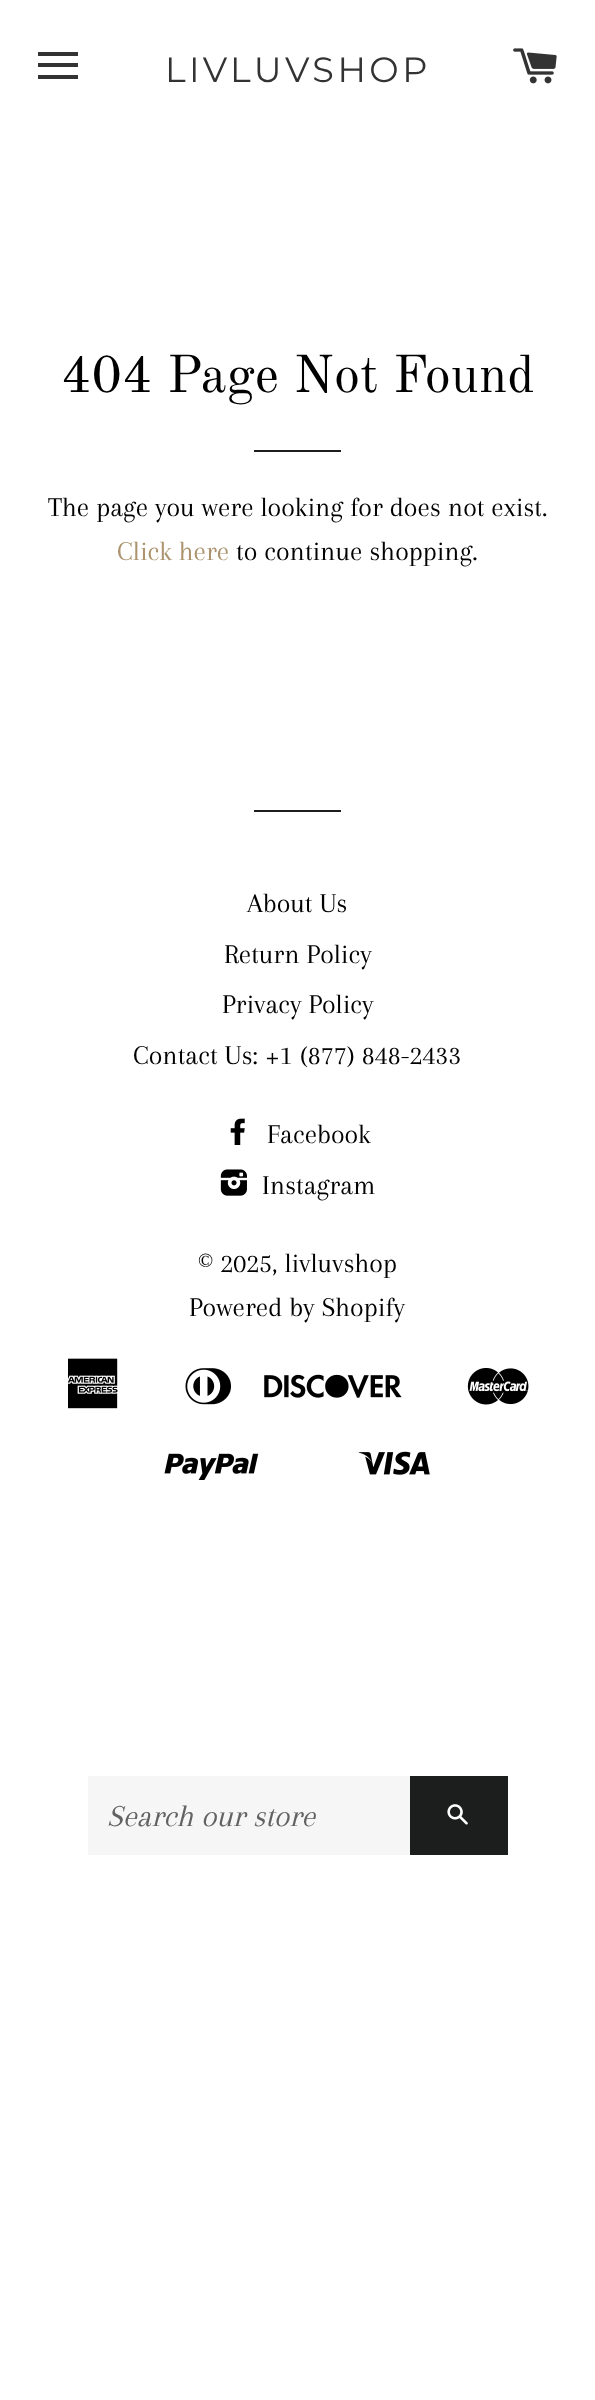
<?xml version="1.0" encoding="UTF-8"?>
<svg xmlns="http://www.w3.org/2000/svg" xmlns:xlink="http://www.w3.org/1999/xlink" width="595" height="2400">
  <rect width="100%" height="100%" fill="#ffffff" />
  <path d="M 38 52 h 40 v 4 h -40 z m 0 11 h 40 v 4 h -40 z m 0 12 h 40 v 4 h -40 z" fill="#333333" />
  <image x="513" y="48" width="44" height="36" xlink:href="image1.png" />
  <rect x="254" y="450" width="87" height="2" fill="#1c1d1d" />
  <rect x="254" y="810" width="87" height="2" fill="#1c1d1d" />
  <image x="230" y="1118" width="15" height="27" xlink:href="image2.png" />
  <image x="220" y="1169" width="27" height="27" xlink:href="image3.png" />
  <image x="68" y="1358" width="50" height="51" xlink:href="image4.png" />
  <image x="185" y="1368" width="46" height="37" xlink:href="image5.png" />
  <image x="264" y="1374" width="138" height="24" xlink:href="image6.png" />
  <image x="467" y="1368" width="62" height="37" xlink:href="image7.png" />
  <image x="164" y="1453" width="95" height="27" xlink:href="image8.png" />
  <image x="358" y="1451" width="72" height="24" xlink:href="image9.png" />
  <rect x="88" y="1776" width="322" height="79" fill="#f6f6f6" />
  <rect x="410" y="1776" width="98" height="79" fill="#1c1d1d" />
  <image x="447" y="1804" width="21" height="21" xlink:href="image10.png" />
  <text x="165" y="82" style="font-family: Montserrat; font-size: 35px; font-weight: 100; letter-spacing: 3.5px; fill: #333333">LIVLUVSHOP</text>
  <text x="61" y="392" style="font-family: Old Standard TT; font-size: 52.5px; fill: #000000">404 Page Not Found</text>
  <text x="48" y="516" style="font-family: Arapey; font-size: 28px; fill: #000000">The page you were looking for does not exist.</text>
  <text x="117" y="560" style="font-family: Arapey; font-size: 28px; fill: #ab936d">Click here</text>
  <text x="236" y="560" style="font-family: Arapey; font-size: 28px; fill: #000000">to continue shopping.</text>
  <text x="247" y="912" style="font-family: Arapey; font-size: 28px; fill: #000000">About Us</text>
  <text x="224" y="963" style="font-family: Arapey; font-size: 28px; fill: #000000">Return Policy</text>
  <text x="222" y="1013" style="font-family: Arapey; font-size: 28px; fill: #000000">Privacy Policy</text>
  <text x="133" y="1064" style="font-family: Arapey; font-size: 28px; fill: #000000">Contact Us: +1 (877) 848-2433</text>
  <text x="267" y="1143" style="font-family: Arapey; font-size: 28px; fill: #000000">Facebook</text>
  <text x="262" y="1194" style="font-family: Arapey; font-size: 28px; fill: #000000">Instagram</text>
  <text x="198" y="1272" style="font-family: Arapey; font-size: 28px; fill: #000000">© 2025, livluvshop</text>
  <text x="189" y="1316" style="font-family: Arapey; font-size: 28px; fill: #000000">Powered by Shopify</text>
  <text x="107" y="1826" style="font-family: Arapey; font-size: 31.5px; font-style: italic; fill: #626262">Search our store</text>
</svg>
